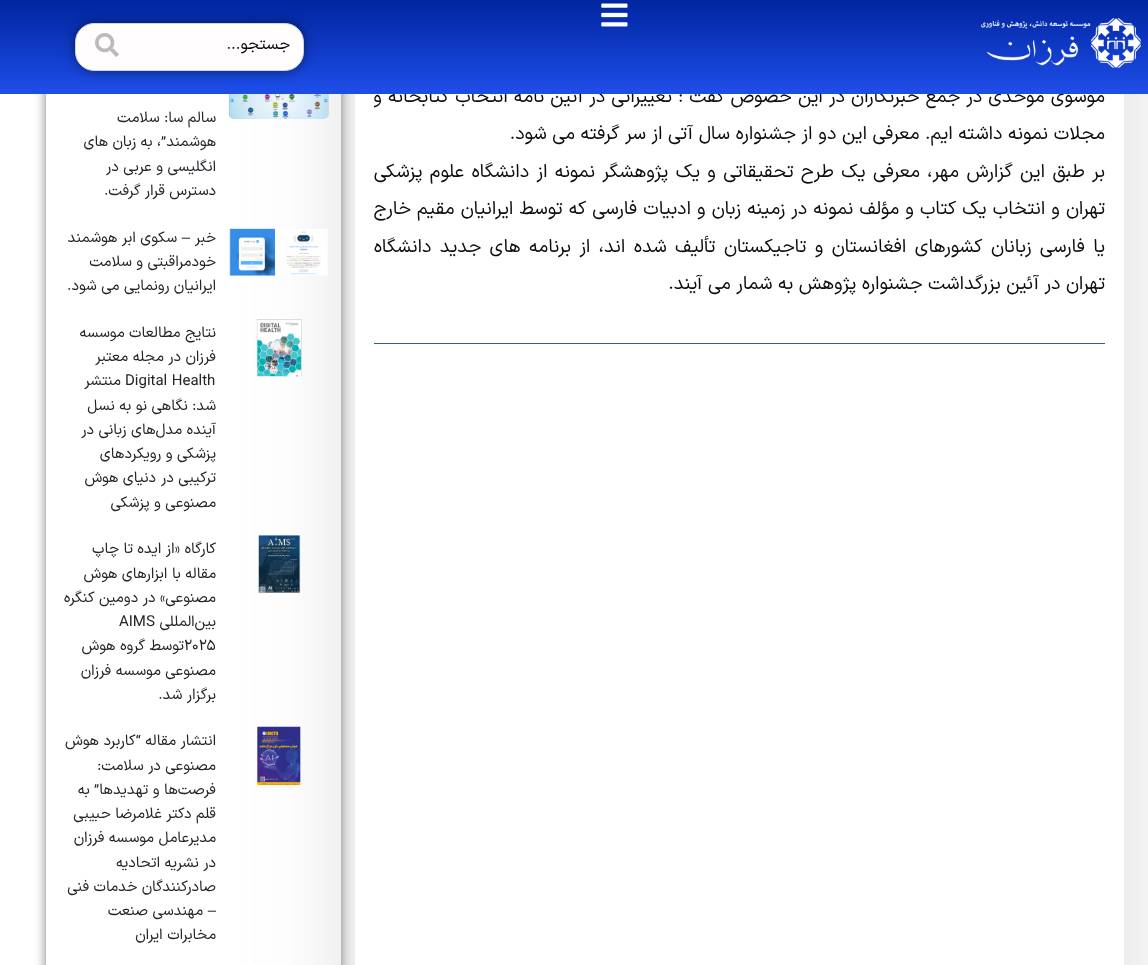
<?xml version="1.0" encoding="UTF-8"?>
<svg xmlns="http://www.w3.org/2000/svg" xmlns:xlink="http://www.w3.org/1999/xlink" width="1148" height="965">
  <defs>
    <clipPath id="clip1"><path d="M 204 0 h 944 v 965 h -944 z m 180 -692 h 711 c 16 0 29 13 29 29 v 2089 c 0 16 -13 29 -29 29 h -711 c -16 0 -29 -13 -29 -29 v -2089 c 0 -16 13 -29 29 -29 z" clip-rule="evenodd" /></clipPath>
    <clipPath id="clip2"><path d="M 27 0 h 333 v 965 h -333 z m 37 -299 h 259 c 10 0 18 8 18 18 v 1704 c 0 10 -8 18 -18 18 h -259 c -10 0 -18 -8 -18 -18 v -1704 c 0 -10 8 -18 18 -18 z" clip-rule="evenodd" /></clipPath>
    <linearGradient id="g1" gradientUnits="userSpaceOnUse" x1="574" y1="94" x2="574" y2="0"><stop offset="0" stop-color="#1e4eea" /><stop offset="1" stop-color="#00259f" /></linearGradient>
  </defs>
  <rect width="100%" height="100%" fill="#ffffff" />
  <g clip-path="url(#clip1)">
    <rect x="355" y="-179" width="769" height="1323" rx="29" fill="#b3b3b3" fill-opacity="0.5" filter="blur(50px)" />
  </g>
  <rect x="374" y="343" width="731" height="1" fill="#395995" />
  <g clip-path="url(#clip2)">
    <rect x="46" y="-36" width="295" height="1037" rx="18" fill="#000000" fill-opacity="0.5" filter="blur(6px)" />
  </g>
  <image x="228" y="94" width="101" height="25" xlink:href="image4.png" />
  <image x="229" y="228" width="99" height="48" xlink:href="image5.png" />
  <image x="256" y="319" width="46" height="58" xlink:href="image6.png" />
  <image x="258" y="535" width="43" height="58" xlink:href="image7.png" />
  <image x="257" y="726" width="44" height="60" xlink:href="image8.png" />
  <text x="1105" y="102" word-spacing="0.6" style="font-family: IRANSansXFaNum; font-size: 18.75px; direction: rtl; fill: #0c0c0c">موسوی موحدی در جمع خبرنگاران در این خصوص گفت : تغییراتی در آئین نامه انتخاب کتابخانه و</text>
  <rect width="1148" height="94" fill="url(#g1)" />
  <rect x="75" y="23" width="229" height="48" rx="19" fill="#000000" fill-opacity="0.5" filter="blur(6px)" />
  <rect x="75.5" y="23.5" width="228" height="47" rx="18.5" fill="#fffdfd" stroke="#ced4da" />
  <image x="95" y="33" width="24" height="24" xlink:href="image3.png" />
  <text x="290" y="49" style="font-family: IRANSansXFaNum; font-size: 16px; direction: rtl; fill: #000000">جستجو...</text>
  <image x="601" y="3" width="27" height="24" xlink:href="image1.png" />
  <image x="981" y="18" width="160" height="50" xlink:href="image2.png" />
  <text x="1105" y="139" style="font-family: IRANSansXFaNum; font-size: 18.75px; direction: rtl; fill: #0c0c0c">مجلات نمونه داشته ایم. معرفی این دو از جشنواره سال آتی از سر گرفته می شود.</text>
  <text x="1105" y="177" word-spacing="1.8" style="font-family: IRANSansXFaNum; font-size: 18.75px; direction: rtl; fill: #0c0c0c">بر طبق این گزارش مهر، معرفی یک طرح تحقیقاتی و یک پژوهشگر نمونه از دانشگاه علوم پزشکی</text>
  <text x="1105" y="214" word-spacing="0.5" style="font-family: IRANSansXFaNum; font-size: 18.75px; direction: rtl; fill: #0c0c0c">تهران و انتخاب یک کتاب و مؤلف نمونه در زمینه زبان و ادبیات فارسی که توسط ایرانیان مقیم خارج</text>
  <text x="1105" y="252" word-spacing="2.9" style="font-family: IRANSansXFaNum; font-size: 18.75px; direction: rtl; fill: #0c0c0c">یا فارسی زبانان کشورهای افغانستان و تاجیکستان تألیف شده اند، از برنامه های جدید دانشگاه</text>
  <text x="1105" y="289" style="font-family: IRANSansXFaNum; font-size: 18.75px; direction: rtl; fill: #0c0c0c">تهران در آئین بزرگداشت جشنواره پژوهش به شمار می آیند.</text>
  <text x="216" y="122" style="font-family: IRANSansXFaNum; font-size: 15px; direction: rtl; fill: #212529">سالم سا: سلامت</text>
  <text x="216" y="146" style="font-family: IRANSansXFaNum; font-size: 15px; direction: rtl; fill: #212529">هوشمند”، به زبان های</text>
  <text x="216" y="171" style="font-family: IRANSansXFaNum; font-size: 15px; direction: rtl; fill: #212529">انگلیسی و عربی در</text>
  <text x="216" y="195" style="font-family: IRANSansXFaNum; font-size: 15px; direction: rtl; fill: #212529">دسترس قرار گرفت.</text>
  <text x="216" y="242" style="font-family: IRANSansXFaNum; font-size: 15px; direction: rtl; fill: #212529">خبر</text>
  <text x="190" y="242" style="font-family: Liberation Sans; font-size: 15px; direction: rtl; fill: #212529">–</text>
  <text x="177" y="242" style="font-family: IRANSansXFaNum; font-size: 15px; direction: rtl; fill: #212529">سکوی ابر هوشمند</text>
  <text x="216" y="266" style="font-family: IRANSansXFaNum; font-size: 15px; direction: rtl; fill: #212529">خودمراقبتی و سلامت</text>
  <text x="216" y="290" style="font-family: IRANSansXFaNum; font-size: 15px; direction: rtl; fill: #212529">ایرانیان رونمایی می شود.</text>
  <text x="216" y="337" style="font-family: IRANSansXFaNum; font-size: 15px; direction: rtl; fill: #212529">نتایج مطالعات موسسه</text>
  <text x="216" y="361" style="font-family: IRANSansXFaNum; font-size: 15px; direction: rtl; fill: #212529">فرزان در مجله معتبر</text>
  <text x="125" y="385" style="font-family: IRANSansXFaNum; font-size: 15px; fill: #212529">Digital Health</text>
  <text x="121" y="385" style="font-family: IRANSansXFaNum; font-size: 15px; direction: rtl; fill: #212529">منتشر</text>
  <text x="216" y="410" style="font-family: IRANSansXFaNum; font-size: 15px; direction: rtl; fill: #212529">شد: نگاهی نو به نسل</text>
  <text x="216" y="434" style="font-family: IRANSansXFaNum; font-size: 15px; direction: rtl; fill: #212529">آینده مدل‌های زبانی در</text>
  <text x="216" y="458" style="font-family: IRANSansXFaNum; font-size: 15px; direction: rtl; fill: #212529">پزشکی و رویکردهای</text>
  <text x="216" y="482" style="font-family: IRANSansXFaNum; font-size: 15px; direction: rtl; fill: #212529">ترکیبی در</text>
  <text x="156" y="482" style="font-family: IRANSansXFaNum; font-size: 15px; direction: rtl; fill: #212529">دنیای هوش</text>
  <text x="216" y="507" style="font-family: IRANSansXFaNum; font-size: 15px; direction: rtl; fill: #212529">مصنوعی و پزشکی</text>
  <text x="216" y="553" style="font-family: IRANSansXFaNum; font-size: 15px; direction: rtl; fill: #212529">کارگاه «از ایده تا چاپ</text>
  <text x="216" y="578" style="font-family: IRANSansXFaNum; font-size: 15px; direction: rtl; fill: #212529">مقاله با ابزارهای هوش</text>
  <text x="216" y="602" style="font-family: IRANSansXFaNum; font-size: 15px; direction: rtl; fill: #212529">مصنوعی» در دومین کنگره</text>
  <text x="216" y="626" style="font-family: IRANSansXFaNum; font-size: 15px; direction: rtl; fill: #212529">بین‌المللی</text>
  <text x="119" y="626" style="font-family: IRANSansXFaNum; font-size: 15px; fill: #212529">AIMS</text>
  <text x="184" y="650" style="font-family: IRANSansXFaNum; font-size: 15px; fill: #212529">2025</text>
  <text x="184" y="650" style="font-family: IRANSansXFaNum; font-size: 15px; direction: rtl; fill: #212529">توسط گروه هوش</text>
  <text x="216" y="675" style="font-family: IRANSansXFaNum; font-size: 15px; direction: rtl; fill: #212529">مصنوعی موسسه فرزان</text>
  <text x="216" y="699" style="font-family: IRANSansXFaNum; font-size: 15px; direction: rtl; fill: #212529">برگزار شد.</text>
  <text x="216" y="745" style="font-family: IRANSansXFaNum; font-size: 15px; direction: rtl; fill: #212529">انتشار مقاله “کاربرد هوش</text>
  <text x="216" y="770" style="font-family: IRANSansXFaNum; font-size: 15px; direction: rtl; fill: #212529">مصنوعی در سلامت:</text>
  <text x="216" y="794" style="font-family: IRANSansXFaNum; font-size: 15px; direction: rtl; fill: #212529">فرصت‌ها و تهدید‌ها” به</text>
  <text x="216" y="818" style="font-family: IRANSansXFaNum; font-size: 15px; direction: rtl; fill: #212529">قلم دکتر غلامرضا حبیبی</text>
  <text x="216" y="842" style="font-family: IRANSansXFaNum; font-size: 15px; direction: rtl; fill: #212529">مدیرعامل موسسه فرزان</text>
  <text x="216" y="867" style="font-family: IRANSansXFaNum; font-size: 15px; direction: rtl; fill: #212529">در نشریه اتحادیه</text>
  <text x="216" y="891" style="font-family: IRANSansXFaNum; font-size: 15px; direction: rtl; fill: #212529">صادرکنندگان خدمات فنی</text>
  <text x="216" y="915" style="font-family: Liberation Sans; font-size: 15px; direction: rtl; fill: #212529">–</text>
  <text x="203" y="915" style="font-family: IRANSansXFaNum; font-size: 15px; direction: rtl; fill: #212529">مهندسی صنعت</text>
  <text x="216" y="939" style="font-family: IRANSansXFaNum; font-size: 15px; direction: rtl; fill: #212529">مخابرات ایران</text>
</svg>
